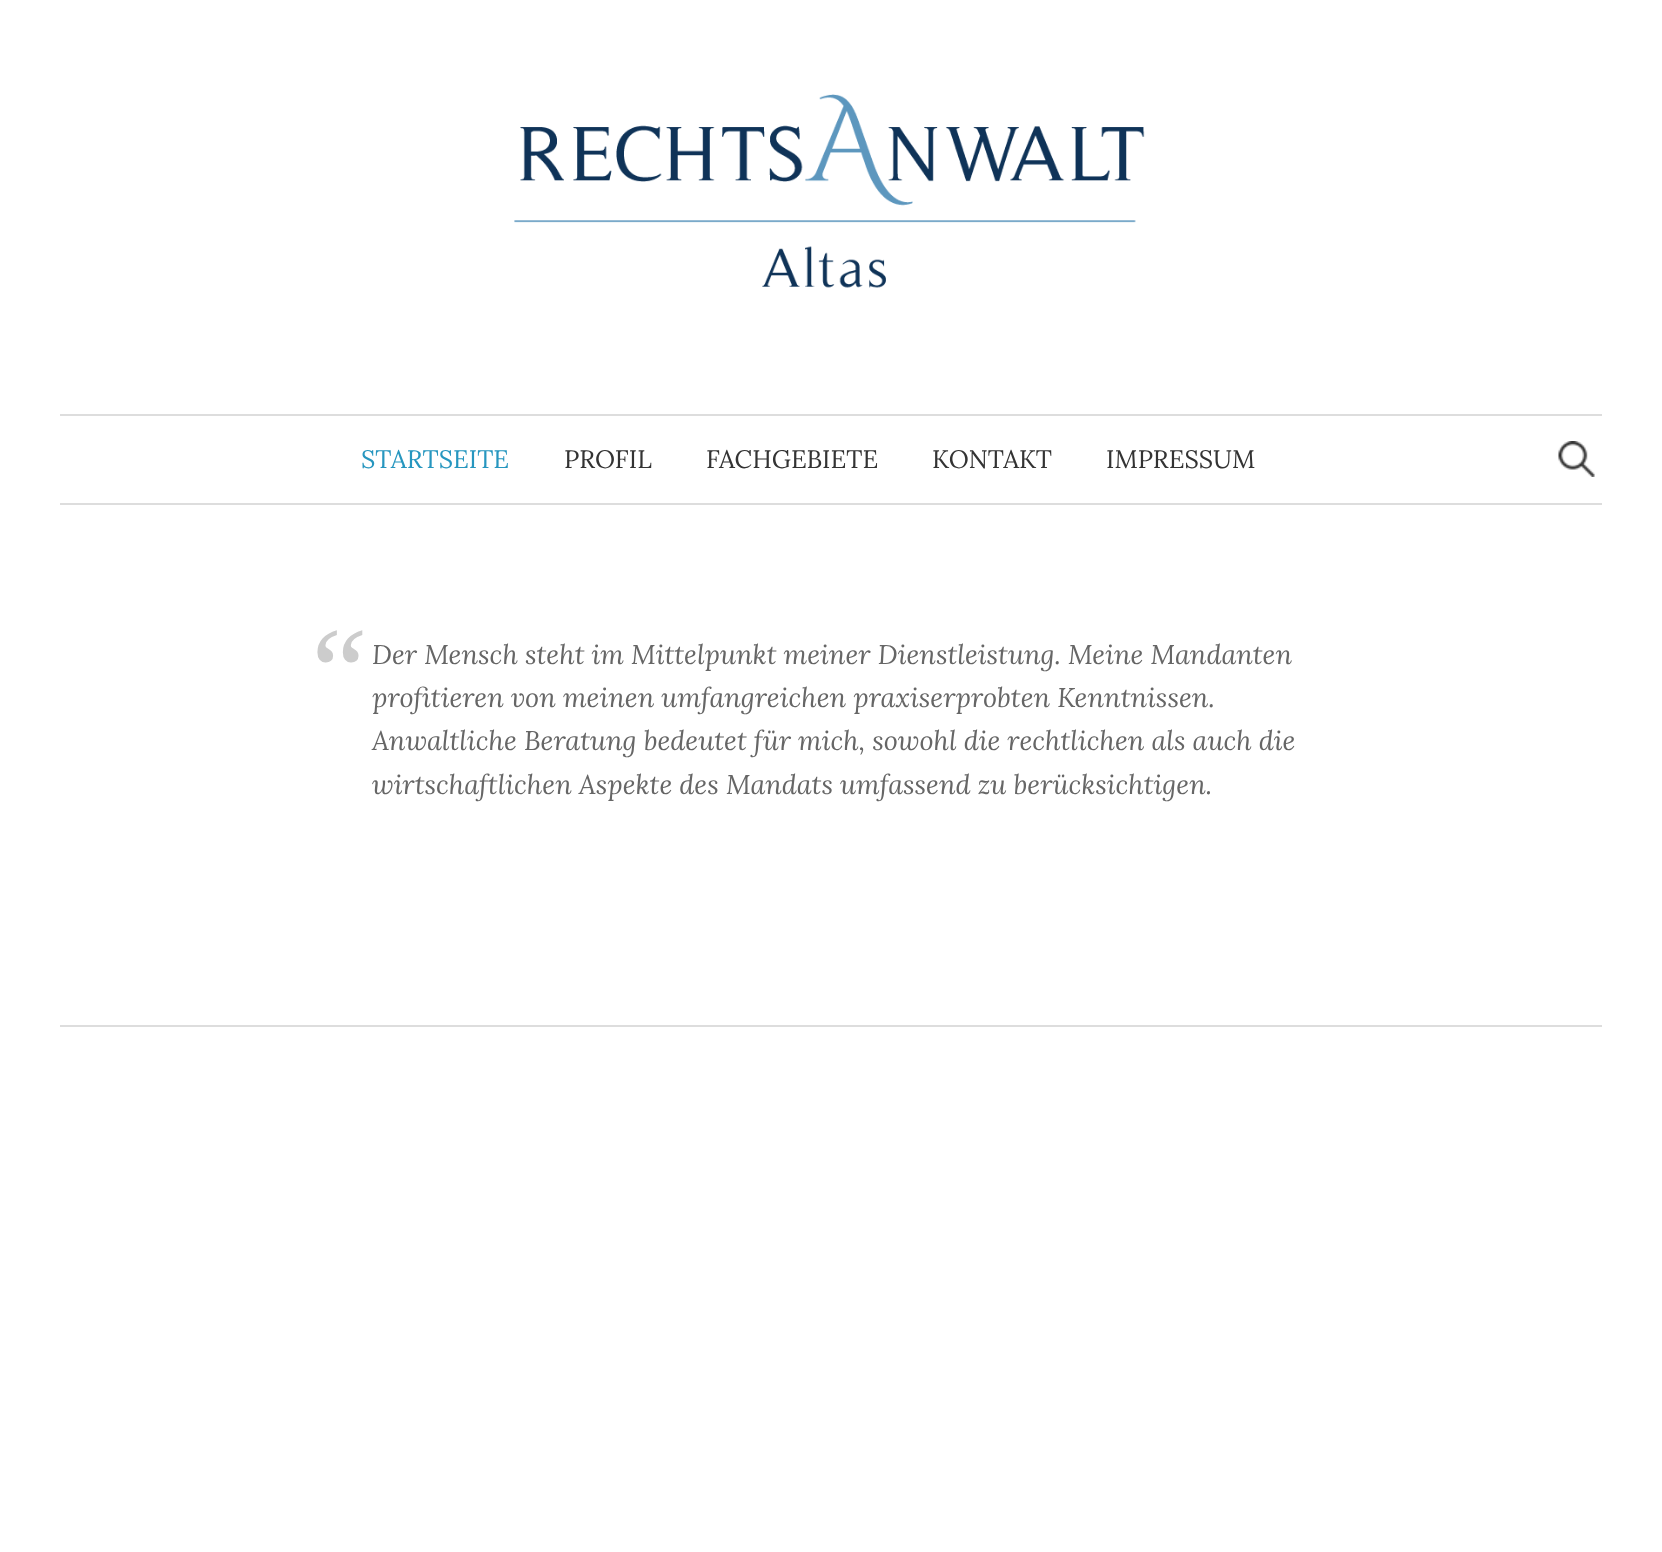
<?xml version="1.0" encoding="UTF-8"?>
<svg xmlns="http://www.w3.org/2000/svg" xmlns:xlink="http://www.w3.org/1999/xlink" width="1662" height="1552">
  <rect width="100%" height="100%" fill="#ffffff" />
  <image x="514" y="94" width="631" height="194" xlink:href="image1.png" />
  <rect x="60" y="414" width="1542" height="2" fill="#dddddd" />
  <rect x="60" y="503" width="1542" height="2" fill="#dddddd" />
  <image x="1558" y="441" width="37" height="36" xlink:href="image2.png" />
  <rect x="60" y="1025" width="1542" height="2" fill="#dddddd" />
  <text x="361" y="468" style="font-family: Lora; font-size: 25.25px; fill: #2696bf">STARTSEITE</text>
  <text x="564" y="468" style="font-family: Lora; font-size: 25.25px; fill: #333333">PROFIL</text>
  <text x="706" y="468" style="font-family: Lora; font-size: 25.25px; fill: #333333">FACHGEBIETE</text>
  <text x="932" y="468" style="font-family: Lora; font-size: 25.25px; fill: #333333">KONTAKT</text>
  <text x="1106" y="468" style="font-family: Lora; font-size: 25.25px; fill: #333333">IMPRESSUM</text>
  <text x="299" y="714" style="font-family: Liberation Serif; font-size: 126px; font-style: italic; fill: #cccccc">“</text>
  <text x="372" y="664" style="font-family: Lora; font-size: 27px; font-style: italic; fill: #666666">Der Mensch steht im Mittelpunkt meiner Dienstleistung. Meine Mandanten</text>
  <text x="372" y="707" style="font-family: Lora; font-size: 27px; font-style: italic; fill: #666666">profitieren von meinen umfangreichen praxiserprobten Kenntnissen.</text>
  <text x="372" y="750" style="font-family: Lora; font-size: 27px; font-style: italic; fill: #666666">Anwaltliche Beratung bedeutet für mich, sowohl die rechtlichen als auch die</text>
  <text x="372" y="794" style="font-family: Lora; font-size: 27px; font-style: italic; fill: #666666">wirtschaftlichen Aspekte des Mandats umfassend zu berücksichtigen.</text>
</svg>
